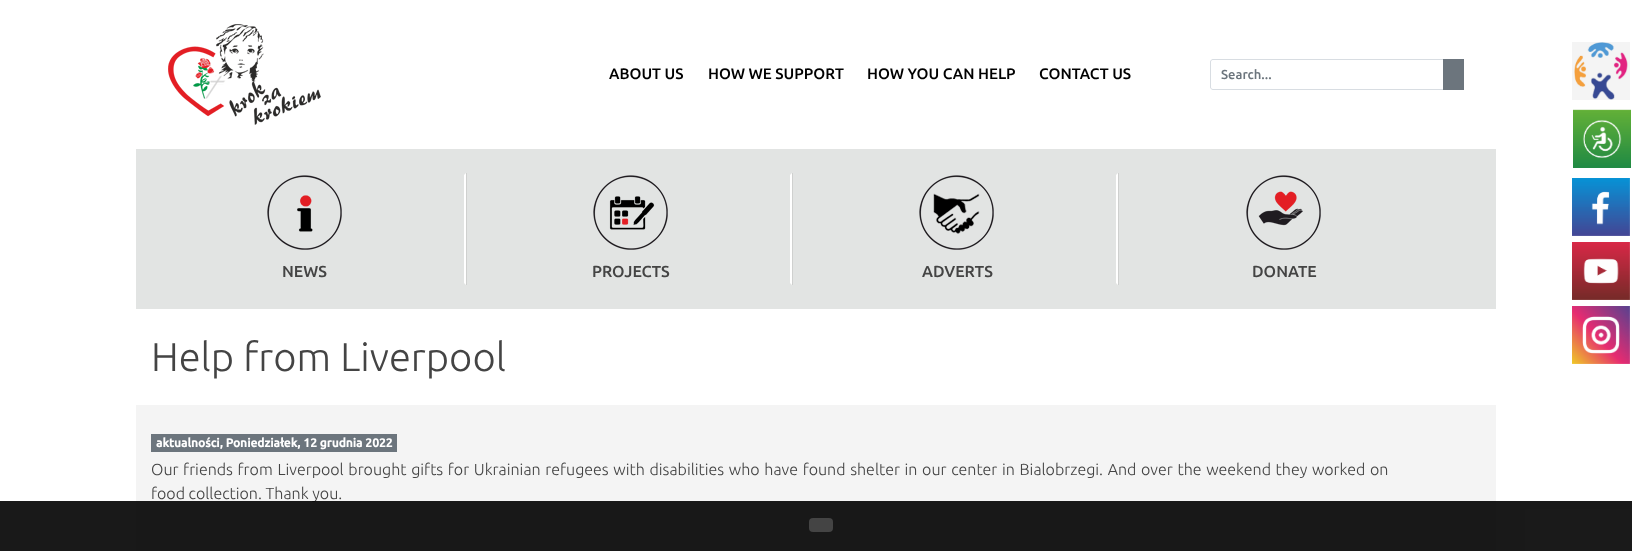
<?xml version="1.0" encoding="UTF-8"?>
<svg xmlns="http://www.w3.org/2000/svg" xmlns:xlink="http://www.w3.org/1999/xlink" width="1632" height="551">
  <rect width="100%" height="100%" fill="#ffffff" />
  <image x="168" y="24" width="153" height="101" xlink:href="image1.png" />
  <path d="M 1213 59.5 h 230.5 v 30 h -230.5 c -1.5 0 -2.5 -1 -2.5 -2.5 v -25 c 0 -1.5 1 -2.5 2.5 -2.5 z" fill="none" stroke="#ced4da" stroke-width="0.8" />
  <rect x="1443" y="59" width="21" height="31" fill="#6c757d" />
  <rect x="136" y="149" width="1360" height="160" fill="#e2e4e3" />
  <rect x="466" y="173" width="1" height="112" fill="#cfd0cf" />
  <path d="M 466 173 v 112 l -2 -2 v -108 z" fill="#ffffff" />
  <image x="267" y="175" width="75" height="75" xlink:href="image2.png" />
  <rect x="792" y="173" width="1" height="112" fill="#cfd0cf" />
  <path d="M 792 173 v 112 l -2 -2 v -108 z" fill="#ffffff" />
  <image x="593" y="175" width="75" height="75" xlink:href="image3.png" />
  <rect x="1118" y="173" width="1" height="112" fill="#cfd0cf" />
  <path d="M 1118 173 v 112 l -2 -2 v -108 z" fill="#ffffff" />
  <image x="919" y="175" width="75" height="75" xlink:href="image4.png" />
  <image x="1246" y="175" width="75" height="75" xlink:href="image5.png" />
  <rect x="136" y="405" width="1360" height="146" fill="#f4f4f4" />
  <rect x="151" y="434" width="246" height="18" fill="#6c757d" />
  <image x="1572" y="42" width="58" height="58" xlink:href="image6.png" />
  <image x="1573" y="109" width="58" height="59" xlink:href="image7.png" />
  <image x="1572" y="178" width="58" height="58" xlink:href="image8.png" />
  <image x="1572" y="242" width="58" height="58" xlink:href="image9.png" />
  <image x="1572" y="306" width="58" height="58" xlink:href="image10.png" />
  <image x="1573" y="109" width="58" height="59" xlink:href="image11.png" />
  <text x="609" y="79" style="font-family: Ubuntu; font-size: 15.25px; font-weight: 500; fill: #000000">ABOUT US</text>
  <text x="708" y="79" style="font-family: Ubuntu; font-size: 15.25px; font-weight: 500; fill: #000000">HOW WE SUPPORT</text>
  <text x="867" y="79" style="font-family: Ubuntu; font-size: 15.25px; font-weight: 500; fill: #000000">HOW YOU CAN HELP</text>
  <text x="1039" y="79" style="font-family: Ubuntu; font-size: 15.25px; font-weight: 500; fill: #000000">CONTACT US</text>
  <text x="1221" y="79" style="font-family: Ubuntu; font-size: 13px; font-weight: 500; fill: #6c757d">Search...</text>
  <text x="282" y="277" style="font-family: Ubuntu; font-size: 16px; font-weight: 500; fill: #444444">NEWS</text>
  <text x="592" y="277" style="font-family: Ubuntu; font-size: 16px; font-weight: 500; fill: #444444">PROJECTS</text>
  <text x="922" y="277" style="font-family: Ubuntu; font-size: 16px; font-weight: 500; fill: #444444">ADVERTS</text>
  <text x="1252" y="277" style="font-family: Ubuntu; font-size: 16px; font-weight: 500; fill: #444444">DONATE</text>
  <text x="151" y="371" style="font-family: Ubuntu; font-size: 40px; font-weight: 300; fill: #444444">Help from Liverpool</text>
  <text x="156" y="447" style="font-family: Ubuntu; font-size: 12px; font-weight: bold; fill: #ffffff">aktualności, Poniedziałek, 12 grudnia 2022</text>
  <text x="151" y="475" word-spacing="1" style="font-family: Ubuntu; font-size: 16px; font-weight: 300; fill: #444444">Our friends from Liverpool brought gifts for Ukrainian refugees with disabilities who have found shelter in our center in Bialobrzegi. And over the weekend they worked on</text>
  <text x="151" y="499" style="font-family: Ubuntu; font-size: 16px; font-weight: 300; fill: #444444">food collection. Thank you.</text>
  <rect y="501" width="1632" height="50" fill="#000000" fill-opacity="0.9" />
  <rect x="809" y="518" width="24" height="14" rx="4" fill="#444444" />
</svg>
